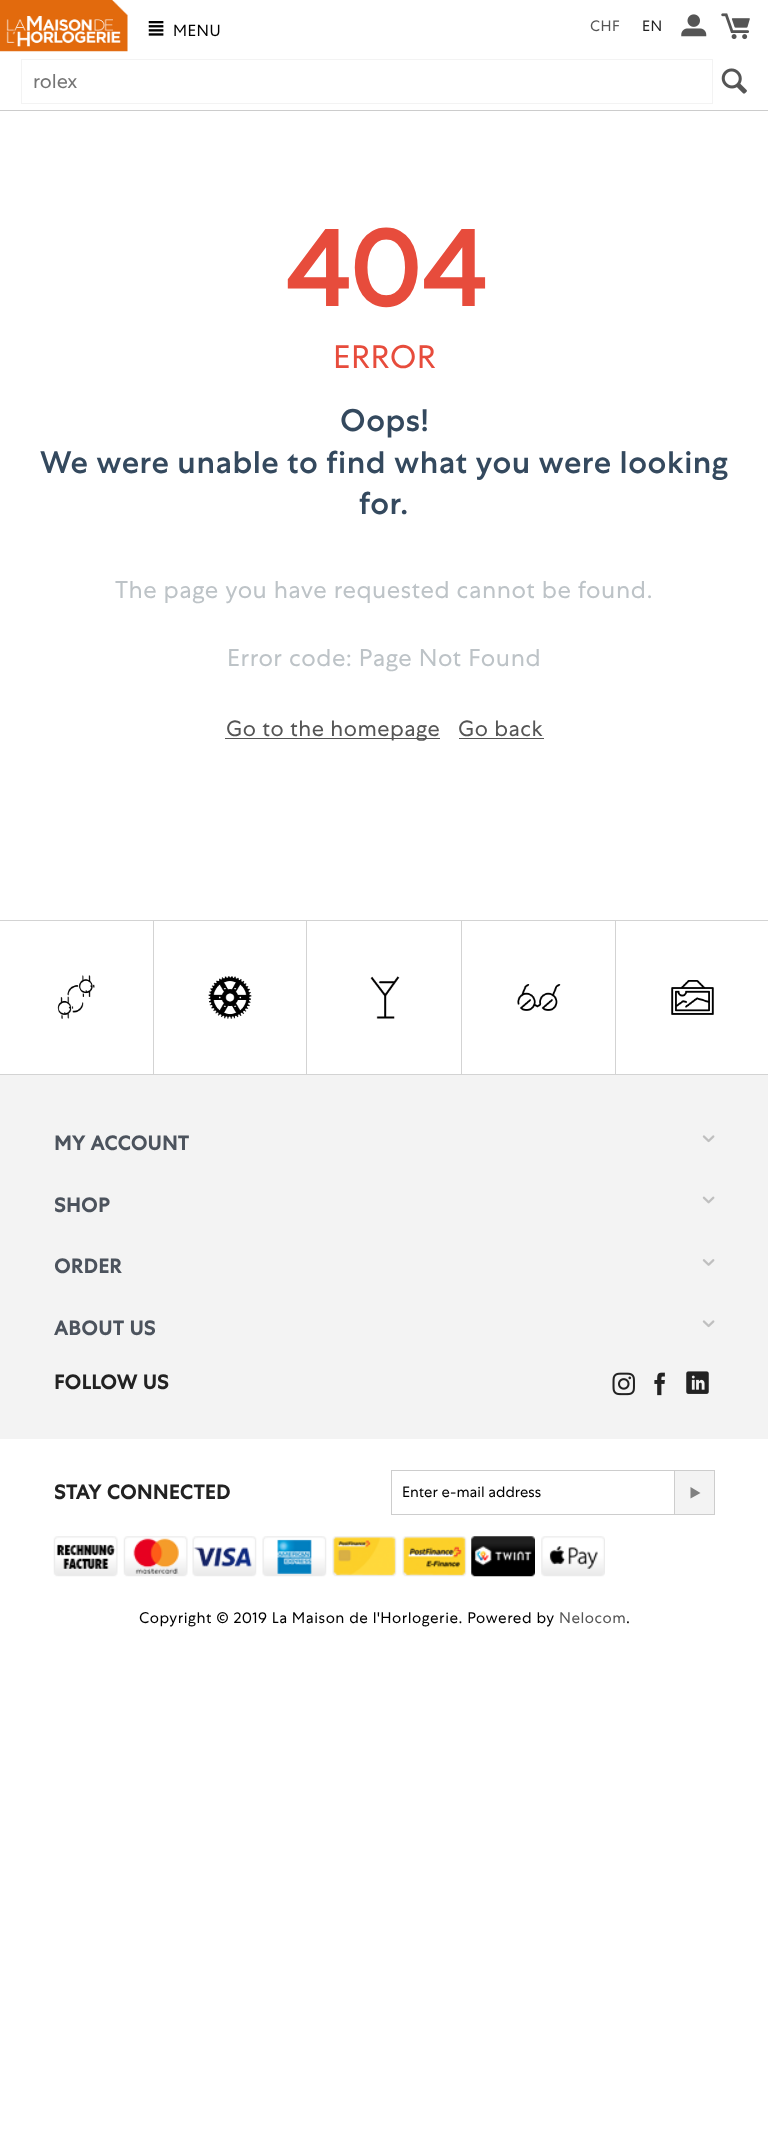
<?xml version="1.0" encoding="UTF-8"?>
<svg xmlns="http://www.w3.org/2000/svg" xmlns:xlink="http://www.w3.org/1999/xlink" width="768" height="2135">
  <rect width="100%" height="100%" fill="#ffffff" />
  <rect y="110" width="768" height="1" fill="#cccccc" />
  <image x="0" y="0" width="128" height="52" xlink:href="image1.png" />
  <image x="681" y="14" width="26" height="23" xlink:href="image2.png" />
  <image x="721" y="13" width="29" height="27" xlink:href="image3.png" />
  <rect x="21.5" y="59.5" width="691" height="44" fill="none" stroke="#f3f3f3" />
  <image x="721" y="68" width="26" height="26" xlink:href="image4.png" />
  <image x="148" y="21" width="16" height="15" xlink:href="image5.png" />
  <rect x="225" y="738" width="215" height="1" fill="#555555" />
  <rect x="459" y="738" width="85" height="1" fill="#555555" />
  <rect y="1075" width="768" height="364" fill="#f3f3f3" />
  <rect y="920" width="768" height="1" fill="#d3d3d3" />
  <rect y="1074" width="768" height="1" fill="#d3d3d3" />
  <rect x="153" y="921" width="1" height="153" fill="#d3d3d3" />
  <image x="57" y="975" width="38" height="44" xlink:href="image6.png" />
  <rect x="306" y="921" width="1" height="153" fill="#d3d3d3" />
  <image x="208" y="976" width="44" height="43" xlink:href="image7.png" />
  <rect x="461" y="921" width="1" height="153" fill="#d3d3d3" />
  <image x="370" y="976" width="30" height="43" xlink:href="image8.png" />
  <rect x="615" y="921" width="1" height="153" fill="#d3d3d3" />
  <image x="517" y="984" width="44" height="27" xlink:href="image9.png" />
  <image x="671" y="980" width="43" height="35" xlink:href="image10.png" />
  <image x="702" y="1135" width="13" height="8" xlink:href="image11.png" />
  <image x="702" y="1196" width="13" height="8" xlink:href="image12.png" />
  <image x="702" y="1259" width="13" height="7" xlink:href="image13.png" />
  <image x="702" y="1320" width="13" height="8" xlink:href="image11.png" />
  <image x="612" y="1372" width="23" height="24" xlink:href="image14.png" />
  <image x="654" y="1372" width="11" height="24" xlink:href="image15.png" />
  <image x="686" y="1371" width="23" height="23" xlink:href="image16.png" />
  <rect x="391.5" y="1470.5" width="323" height="44" fill="none" stroke="#cdcdcd" />
  <rect x="675" y="1471" width="39" height="43" fill="#f3f3f3" />
  <rect x="674" y="1471" width="1" height="43" fill="#cdcdcd" />
  <path d="M 690.5 1487 l 10 6 l -10 5.5 z" fill="#808080" />
  <image x="53" y="1536" width="65" height="41" xlink:href="image17.png" />
  <image x="123" y="1536" width="65" height="41" xlink:href="image18.png" />
  <image x="192" y="1536" width="65" height="41" xlink:href="image19.png" />
  <image x="262" y="1536" width="65" height="41" xlink:href="image20.png" />
  <image x="332" y="1536" width="65" height="41" xlink:href="image21.png" />
  <image x="402" y="1536" width="65" height="41" xlink:href="image22.png" />
  <image x="471" y="1536" width="64" height="41" xlink:href="image23.png" />
  <image x="541" y="1536" width="64" height="41" xlink:href="image24.png" />
  <text x="590" y="31" style="font-family: 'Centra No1'; font-size: 15px; letter-spacing: 0.5px; fill: #555555">CHF</text>
  <text x="642" y="31" style="font-family: 'Centra No1'; font-size: 15px; letter-spacing: 0.5px; fill: #222222">EN</text>
  <text x="33" y="88" style="font-family: 'Centra No1'; font-size: 20px; fill: #757575">rolex</text>
  <text x="173" y="36" style="font-family: 'Centra No1'; font-size: 16px; letter-spacing: 0.5px; fill: #000000">MENU</text>
  <text x="285" y="306" style="font-family: 'Centra No1'; font-size: 108px; font-weight: bold; letter-spacing: 0.5px; fill: #e74c3c">404</text>
  <text x="333" y="368" style="font-family: 'Centra No1'; font-size: 32.5px; letter-spacing: 0.5px; fill: #e74c3c">ERROR</text>
  <text x="340" y="431" style="font-family: 'Centra No1'; font-size: 31.25px; font-weight: 500; letter-spacing: 0.5px; fill: #34495e">Oops!</text>
  <text x="40" y="473" style="font-family: 'Centra No1'; font-size: 31.25px; font-weight: 500; letter-spacing: 0.5px; fill: #34495e">We were unable to find what you were looking</text>
  <text x="359" y="514" style="font-family: 'Centra No1'; font-size: 31.25px; font-weight: 500; letter-spacing: 0.5px; fill: #34495e">for.</text>
  <text x="115" y="598" style="font-family: 'Centra No1'; font-size: 24.2px; letter-spacing: 0.5px; fill: #bdc3c7">The page you have requested cannot be found.</text>
  <text x="227" y="666" style="font-family: 'Centra No1'; font-size: 24.2px; letter-spacing: 0.5px; fill: #bdc3c7">Error code: Page Not Found</text>
  <text x="226" y="736" style="font-family: 'Centra No1'; font-size: 22px; letter-spacing: 0.5px; fill: #555555">Go to the homepage</text>
  <text x="458" y="736" style="font-family: 'Centra No1'; font-size: 22px; letter-spacing: 0.5px; fill: #555555">Go back</text>
  <text x="54" y="1150" style="font-family: 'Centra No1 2'; font-size: 20px; font-weight: bold; letter-spacing: 0.5px; fill: #4c535d">MY ACCOUNT</text>
  <text x="54" y="1212" style="font-family: 'Centra No1 2'; font-size: 20px; font-weight: bold; letter-spacing: 0.5px; fill: #4c535d">SHOP</text>
  <text x="54" y="1273" style="font-family: 'Centra No1 2'; font-size: 20px; font-weight: bold; letter-spacing: 0.5px; fill: #4c535d">ORDER</text>
  <text x="54" y="1335" style="font-family: 'Centra No1 2'; font-size: 20px; font-weight: bold; letter-spacing: 0.5px; fill: #4c535d">ABOUT US</text>
  <text x="54" y="1389" style="font-family: 'Centra No1 2'; font-size: 20px; font-weight: bold; letter-spacing: 0.5px; fill: #222222">FOLLOW US</text>
  <text x="54" y="1499" style="font-family: 'Centra No1 2'; font-size: 20px; font-weight: bold; letter-spacing: 0.5px; fill: #222222">STAY CONNECTED</text>
  <text x="402" y="1497" style="font-family: 'Centra No1'; font-size: 15px; fill: #000000">Enter e-mail address</text>
  <text x="139" y="1623" style="font-family: 'Centra No1'; font-size: 15.4px; letter-spacing: 0.5px; fill: #000000">Copyright © 2019 La Maison de l'Horlogerie. Powered by</text>
  <text x="559" y="1623" style="font-family: 'Centra No1'; font-size: 15.4px; letter-spacing: 0.5px; fill: #555555">Nelocom</text>
  <text x="626" y="1623" style="font-family: 'Centra No1'; font-size: 15.4px; letter-spacing: 0.5px; fill: #000000">.</text>
</svg>
